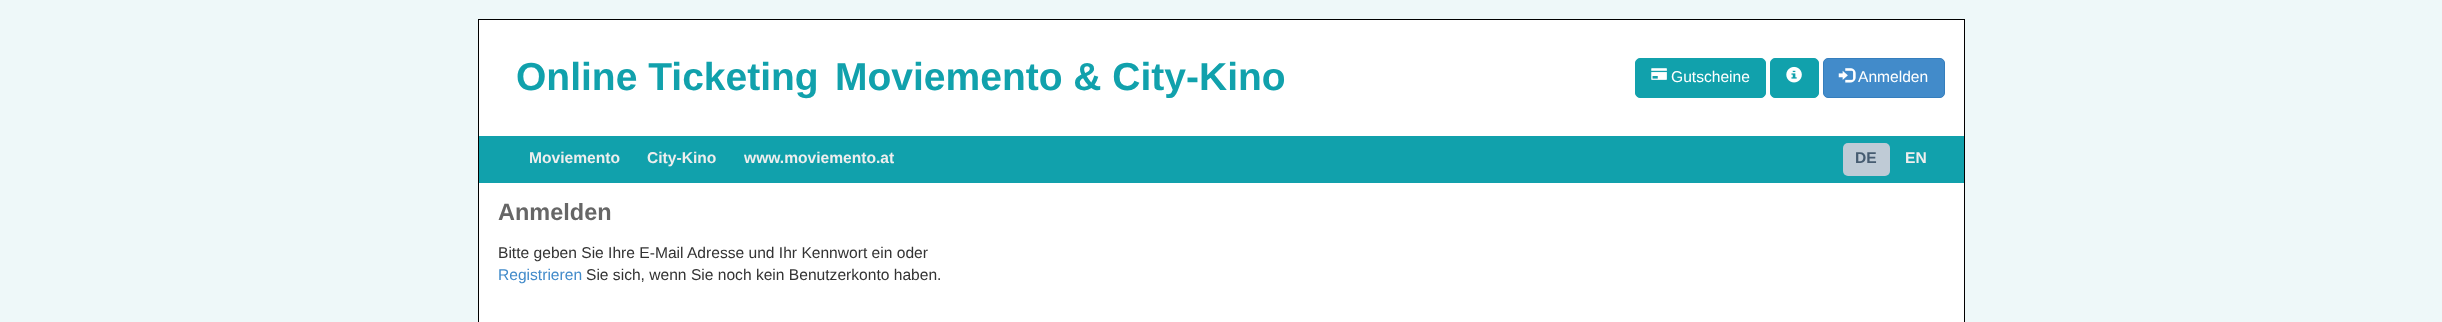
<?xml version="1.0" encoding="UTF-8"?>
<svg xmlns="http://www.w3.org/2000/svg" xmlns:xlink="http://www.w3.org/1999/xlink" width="2442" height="322">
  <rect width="100%" height="100%" fill="#eef8f9" />
  <rect x="479" y="20" width="1485" height="116" fill="#ffffff" />
  <rect x="478" y="19" width="1487" height="1" fill="#000000" />
  <rect x="1964" y="19" width="1" height="117" fill="#000000" />
  <rect x="478" y="19" width="1" height="117" fill="#000000" />
  <rect x="1635.5" y="58.5" width="130" height="39" rx="4.5" fill="#11a1ac" stroke="#11a1ac" />
  <image x="1651" y="68" width="16" height="12" xlink:href="image1.png" />
  <rect x="1770.5" y="58.5" width="48" height="39" rx="4.5" fill="#11a1ac" stroke="#11a1ac" />
  <image x="1786" y="66" width="16" height="17" xlink:href="image2.png" />
  <rect x="1823.5" y="58.5" width="121" height="39" rx="4.5" fill="#428bca" stroke="#357ebd" />
  <image x="1838" y="68" width="18" height="15" xlink:href="image3.png" />
  <rect x="479" y="136" width="1485" height="47" fill="#11a1ac" />
  <rect x="1964" y="136" width="1" height="186" fill="#000000" />
  <rect x="478" y="136" width="1" height="186" fill="#000000" />
  <rect x="1843" y="143" width="47" height="33" rx="5" fill="#bfcbd6" />
  <rect x="479" y="183" width="1485" height="139" fill="#ffffff" />
  <text x="516" y="90" style="font-family: Liberation Sans; font-size: 39px; font-weight: bold; fill: #11a1ac">Online Ticketing</text>
  <text x="835" y="90" style="font-family: Liberation Sans; font-size: 39px; font-weight: bold; fill: #11a1ac">Moviemento &amp; City-Kino</text>
  <text x="1671" y="82" style="font-family: Liberation Sans; font-size: 15.6px; fill: #ffffff">Gutscheine</text>
  <text x="1858" y="82" style="font-family: Liberation Sans; font-size: 15.6px; fill: #ffffff">Anmelden</text>
  <text x="529" y="163" style="font-family: Liberation Sans; font-size: 15.6px; font-weight: bold; fill: #eeeeee">Moviemento</text>
  <text x="647" y="163" style="font-family: Liberation Sans; font-size: 15.6px; font-weight: bold; fill: #eeeeee">City-Kino</text>
  <text x="744" y="163" style="font-family: Liberation Sans; font-size: 15.6px; font-weight: bold; fill: #eeeeee">www.moviemento.at</text>
  <text x="1855" y="163" style="font-family: Liberation Sans; font-size: 15.6px; font-weight: bold; fill: #465c71">DE</text>
  <text x="1905" y="163" style="font-family: Liberation Sans; font-size: 15.6px; font-weight: bold; fill: #eeeeee">EN</text>
  <text x="498" y="220" style="font-family: Liberation Sans; font-size: 23.5px; font-weight: bold; fill: #666666">Anmelden</text>
  <text x="498" y="258" style="font-family: Liberation Sans; font-size: 15.6px; fill: #333333">Bitte geben Sie Ihre E-Mail Adresse und Ihr Kennwort ein oder</text>
  <text x="498" y="280" style="font-family: Liberation Sans; font-size: 15.6px; fill: #428bca">Registrieren</text>
  <text x="586" y="280" style="font-family: Liberation Sans; font-size: 15.6px; fill: #333333">Sie sich, wenn Sie noch kein Benutzerkonto haben.</text>
</svg>
